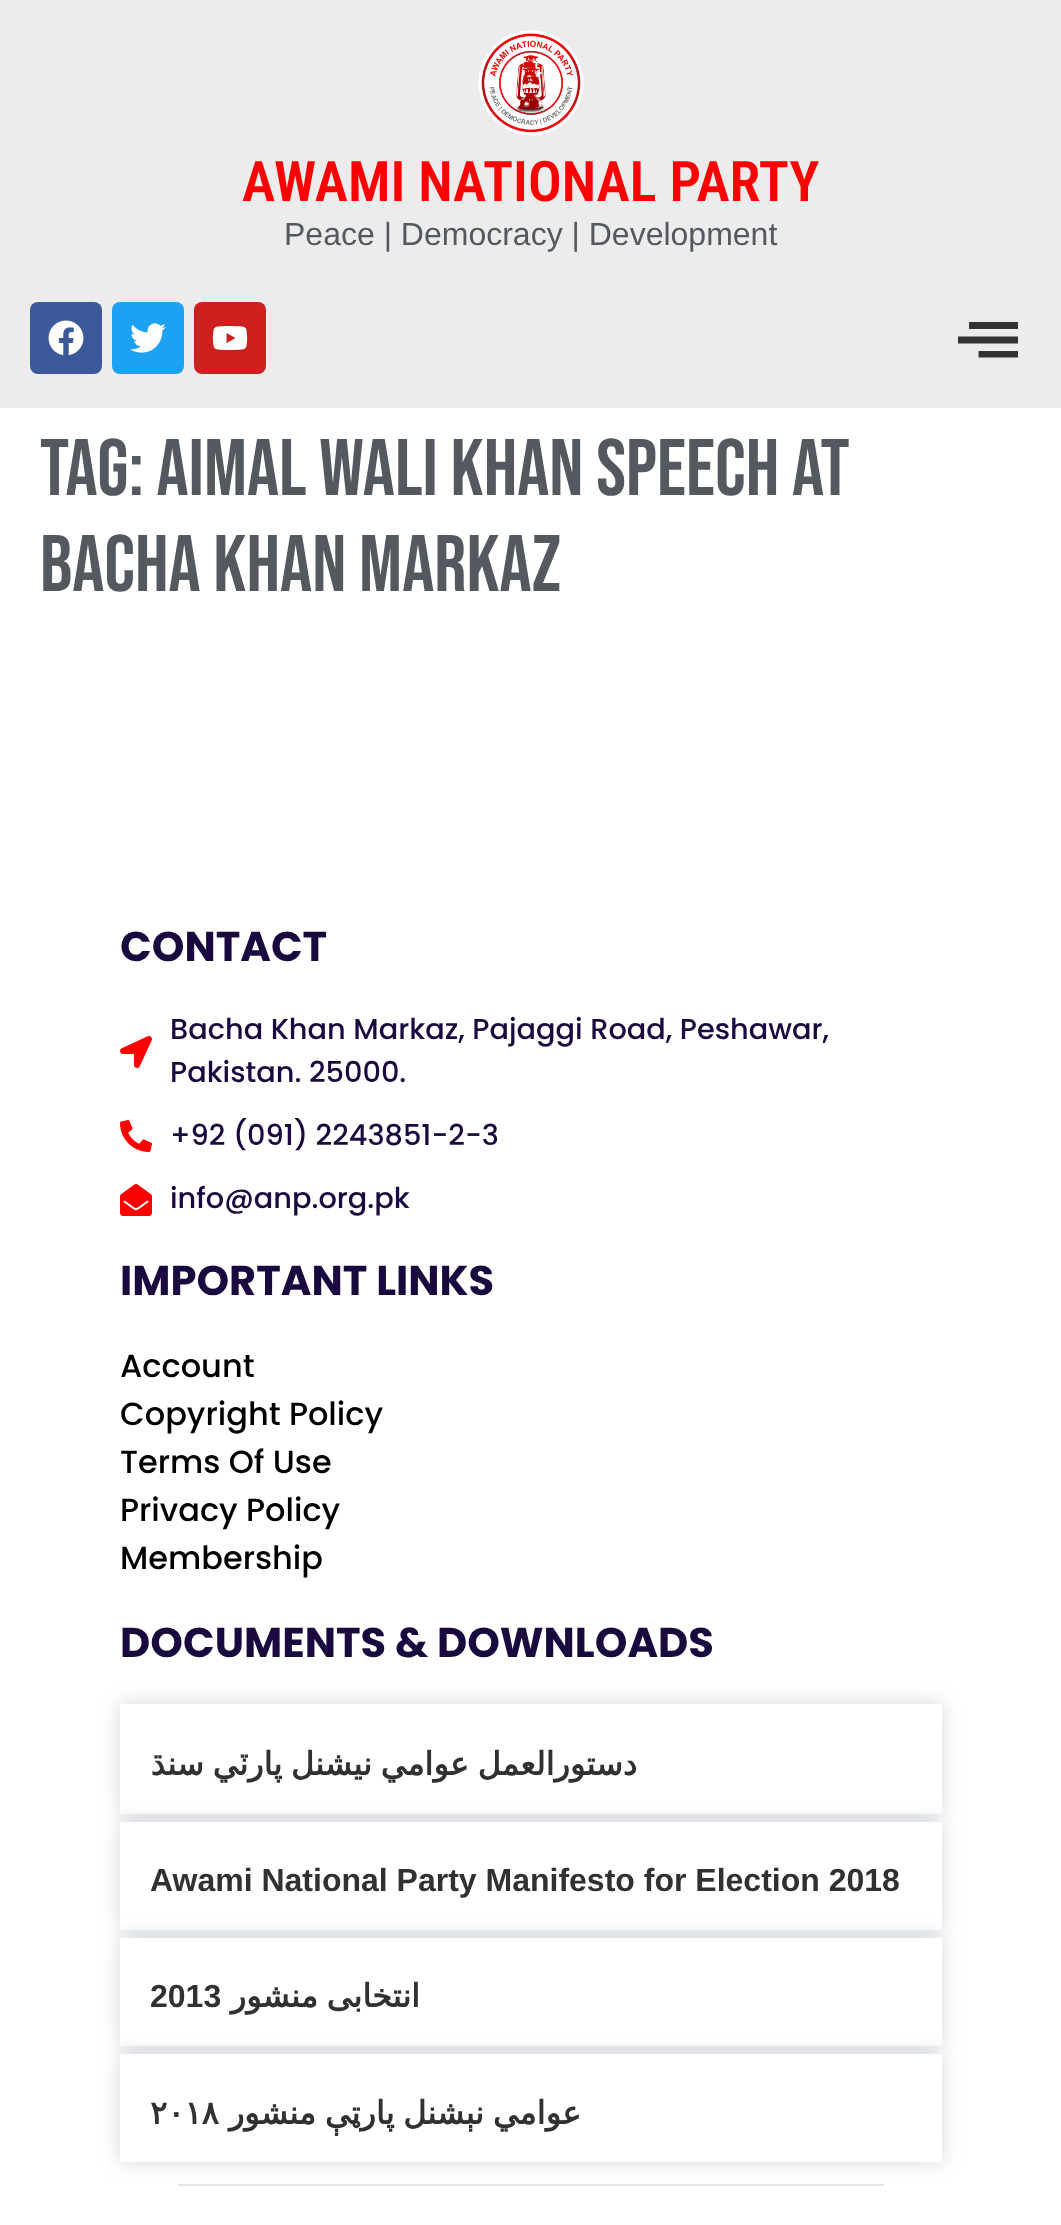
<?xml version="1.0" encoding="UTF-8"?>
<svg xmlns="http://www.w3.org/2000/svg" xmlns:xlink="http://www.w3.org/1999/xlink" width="1061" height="2225">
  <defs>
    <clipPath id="clip1"><rect x="958" y="308" width="60" height="60" /></clipPath>
    <clipPath id="clip2"><path d="M 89 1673 h 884 v 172 h -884 z m 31 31 h 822 v 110 h -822 z" clip-rule="evenodd" /></clipPath>
  </defs>
  <rect width="100%" height="100%" fill="#ffffff" />
  <rect width="1061" height="408" fill="#ececec" />
  <image x="478" y="30" width="106" height="106" xlink:href="image1.png" />
  <rect x="30" y="302" width="72" height="72" rx="8" fill="#3b5998" />
  <image x="48" y="320" width="36" height="36" xlink:href="image2.png" />
  <rect x="112" y="302" width="72" height="72" rx="8" fill="#1da1f2" />
  <image x="130" y="323" width="36" height="30" xlink:href="image3.png" />
  <rect x="194" y="302" width="72" height="72" rx="8" fill="#cd201f" />
  <image x="212" y="326" width="36" height="24" xlink:href="image4.png" />
  <path d="M 958 342 h 60 v -5 h -60 z m 22 15 h 38 v -5 h -38 z m -10 -34 v 5 h 48 v -5 z" fill="#333333" />
  <g clip-path="url(#clip1)">
    <path d="M 958 342.5 h 60 v -5 h -60 z m 21.5 14 h 38.5 v -4.5 h -38.5 z m -9.5 -33.5 v 5 h 48 v -5 z" fill="none" stroke="#333333" stroke-width="1.9" />
  </g>
  <image x="120" y="1036" width="32" height="32" xlink:href="image5.png" />
  <image x="120" y="1120" width="32" height="32" xlink:href="image6.png" />
  <image x="120" y="1184" width="32" height="32" xlink:href="image7.png" />
  <g clip-path="url(#clip2)">
    <rect x="120" y="1704" width="822" height="110" fill="#6e7b8c" fill-opacity="0.3" filter="blur(10px)" />
  </g>
  <rect x="120" y="1822" width="822" height="108" fill="#6e7b8c" fill-opacity="0.3" filter="blur(10px)" />
  <rect x="120" y="1822" width="822" height="108" fill="#ffffff" />
  <rect x="120" y="1938" width="822" height="108" fill="#6e7b8c" fill-opacity="0.3" filter="blur(10px)" />
  <rect x="120" y="1938" width="822" height="108" fill="#ffffff" />
  <rect x="120" y="2054" width="822" height="108" fill="#6e7b8c" fill-opacity="0.3" filter="blur(10px)" />
  <rect x="120" y="2054" width="822" height="108" fill="#ffffff" />
  <rect x="178" y="2184" width="706" height="2" fill="#e5e5e5" />
  <text x="242" y="201" style="font-family: Roboto Condensed; font-size: 56px; font-weight: 600; fill: #ff0000">AWAMI NATIONAL PARTY</text>
  <text x="284" y="245" style="font-family: Liberation Sans; font-size: 32px; fill: #54595f">Peace | Democracy | Development</text>
  <text x="40" y="495" style="font-family: Bebas Neue; font-size: 80px; fill: #54595f">Tag: aimal wali khan speech at</text>
  <text x="40" y="591" style="font-family: Bebas Neue; font-size: 80px; fill: #54595f">bacha khan markaz</text>
  <text x="120" y="961" style="font-family: Poppins; font-size: 41.6px; font-weight: bold; fill: #1a093f">CONTACT</text>
  <text x="170" y="1039" style="font-family: Poppins; font-size: 28.8px; font-weight: 500; fill: #1a093f">Bacha Khan Markaz, Pajaggi Road, Peshawar,</text>
  <text x="170" y="1082" style="font-family: Poppins; font-size: 28.8px; font-weight: 500; fill: #1a093f">Pakistan. 25000.</text>
  <text x="170" y="1145" style="font-family: Poppins; font-size: 28.8px; font-weight: 500; fill: #1a093f">+92 (091) 2243851-2-3</text>
  <text x="170" y="1208" style="font-family: Poppins; font-size: 28.8px; font-weight: 500; fill: #1a093f">info@anp.org.pk</text>
  <text x="120" y="1295" style="font-family: Poppins; font-size: 41.6px; font-weight: bold; fill: #1a093f">IMPORTANT LINKS</text>
  <text x="120" y="1377" style="font-family: Poppins; font-size: 32px; font-weight: 500; fill: #000000">Account</text>
  <text x="120" y="1425" style="font-family: Poppins; font-size: 32px; font-weight: 500; fill: #000000">Copyright Policy</text>
  <text x="120" y="1473" style="font-family: Poppins; font-size: 32px; font-weight: 500; fill: #000000">Terms Of Use</text>
  <text x="120" y="1521" style="font-family: Poppins; font-size: 32px; font-weight: 500; fill: #000000">Privacy Policy</text>
  <text x="120" y="1569" style="font-family: Poppins; font-size: 32px; font-weight: 500; fill: #000000">Membership</text>
  <text x="120" y="1657" style="font-family: Poppins; font-size: 41.6px; font-weight: bold; fill: #1a093f">DOCUMENTS &amp; DOWNLOADS</text>
  <text x="637" y="1775" word-spacing="-1.5" style="font-family: DejaVu Sans; font-size: 32px; font-weight: bold; direction: rtl; fill: #303133">دستورالعمل عوامي نيشنل پارٽي سنڌ</text>
  <text x="150" y="1891" style="font-family: Liberation Sans; font-size: 32px; font-weight: bold; fill: #303133">Awami National Party Manifesto for Election 2018</text>
  <text x="150" y="2007" style="font-family: Liberation Sans; font-size: 32px; font-weight: bold; fill: #303133">2013</text>
  <text x="420" y="2007" word-spacing="-1.5" style="font-family: DejaVu Sans; font-size: 32px; font-weight: bold; direction: rtl; fill: #303133">انتخابی منشور</text>
  <text x="150" y="2124" style="font-family: DejaVu Sans; font-size: 32px; font-weight: bold; fill: #303133">۲۰۱۸</text>
  <text x="581" y="2124" word-spacing="-1.5" style="font-family: DejaVu Sans; font-size: 32px; font-weight: bold; direction: rtl; fill: #303133">عوامي نېشنل پارټې منشور</text>
</svg>
